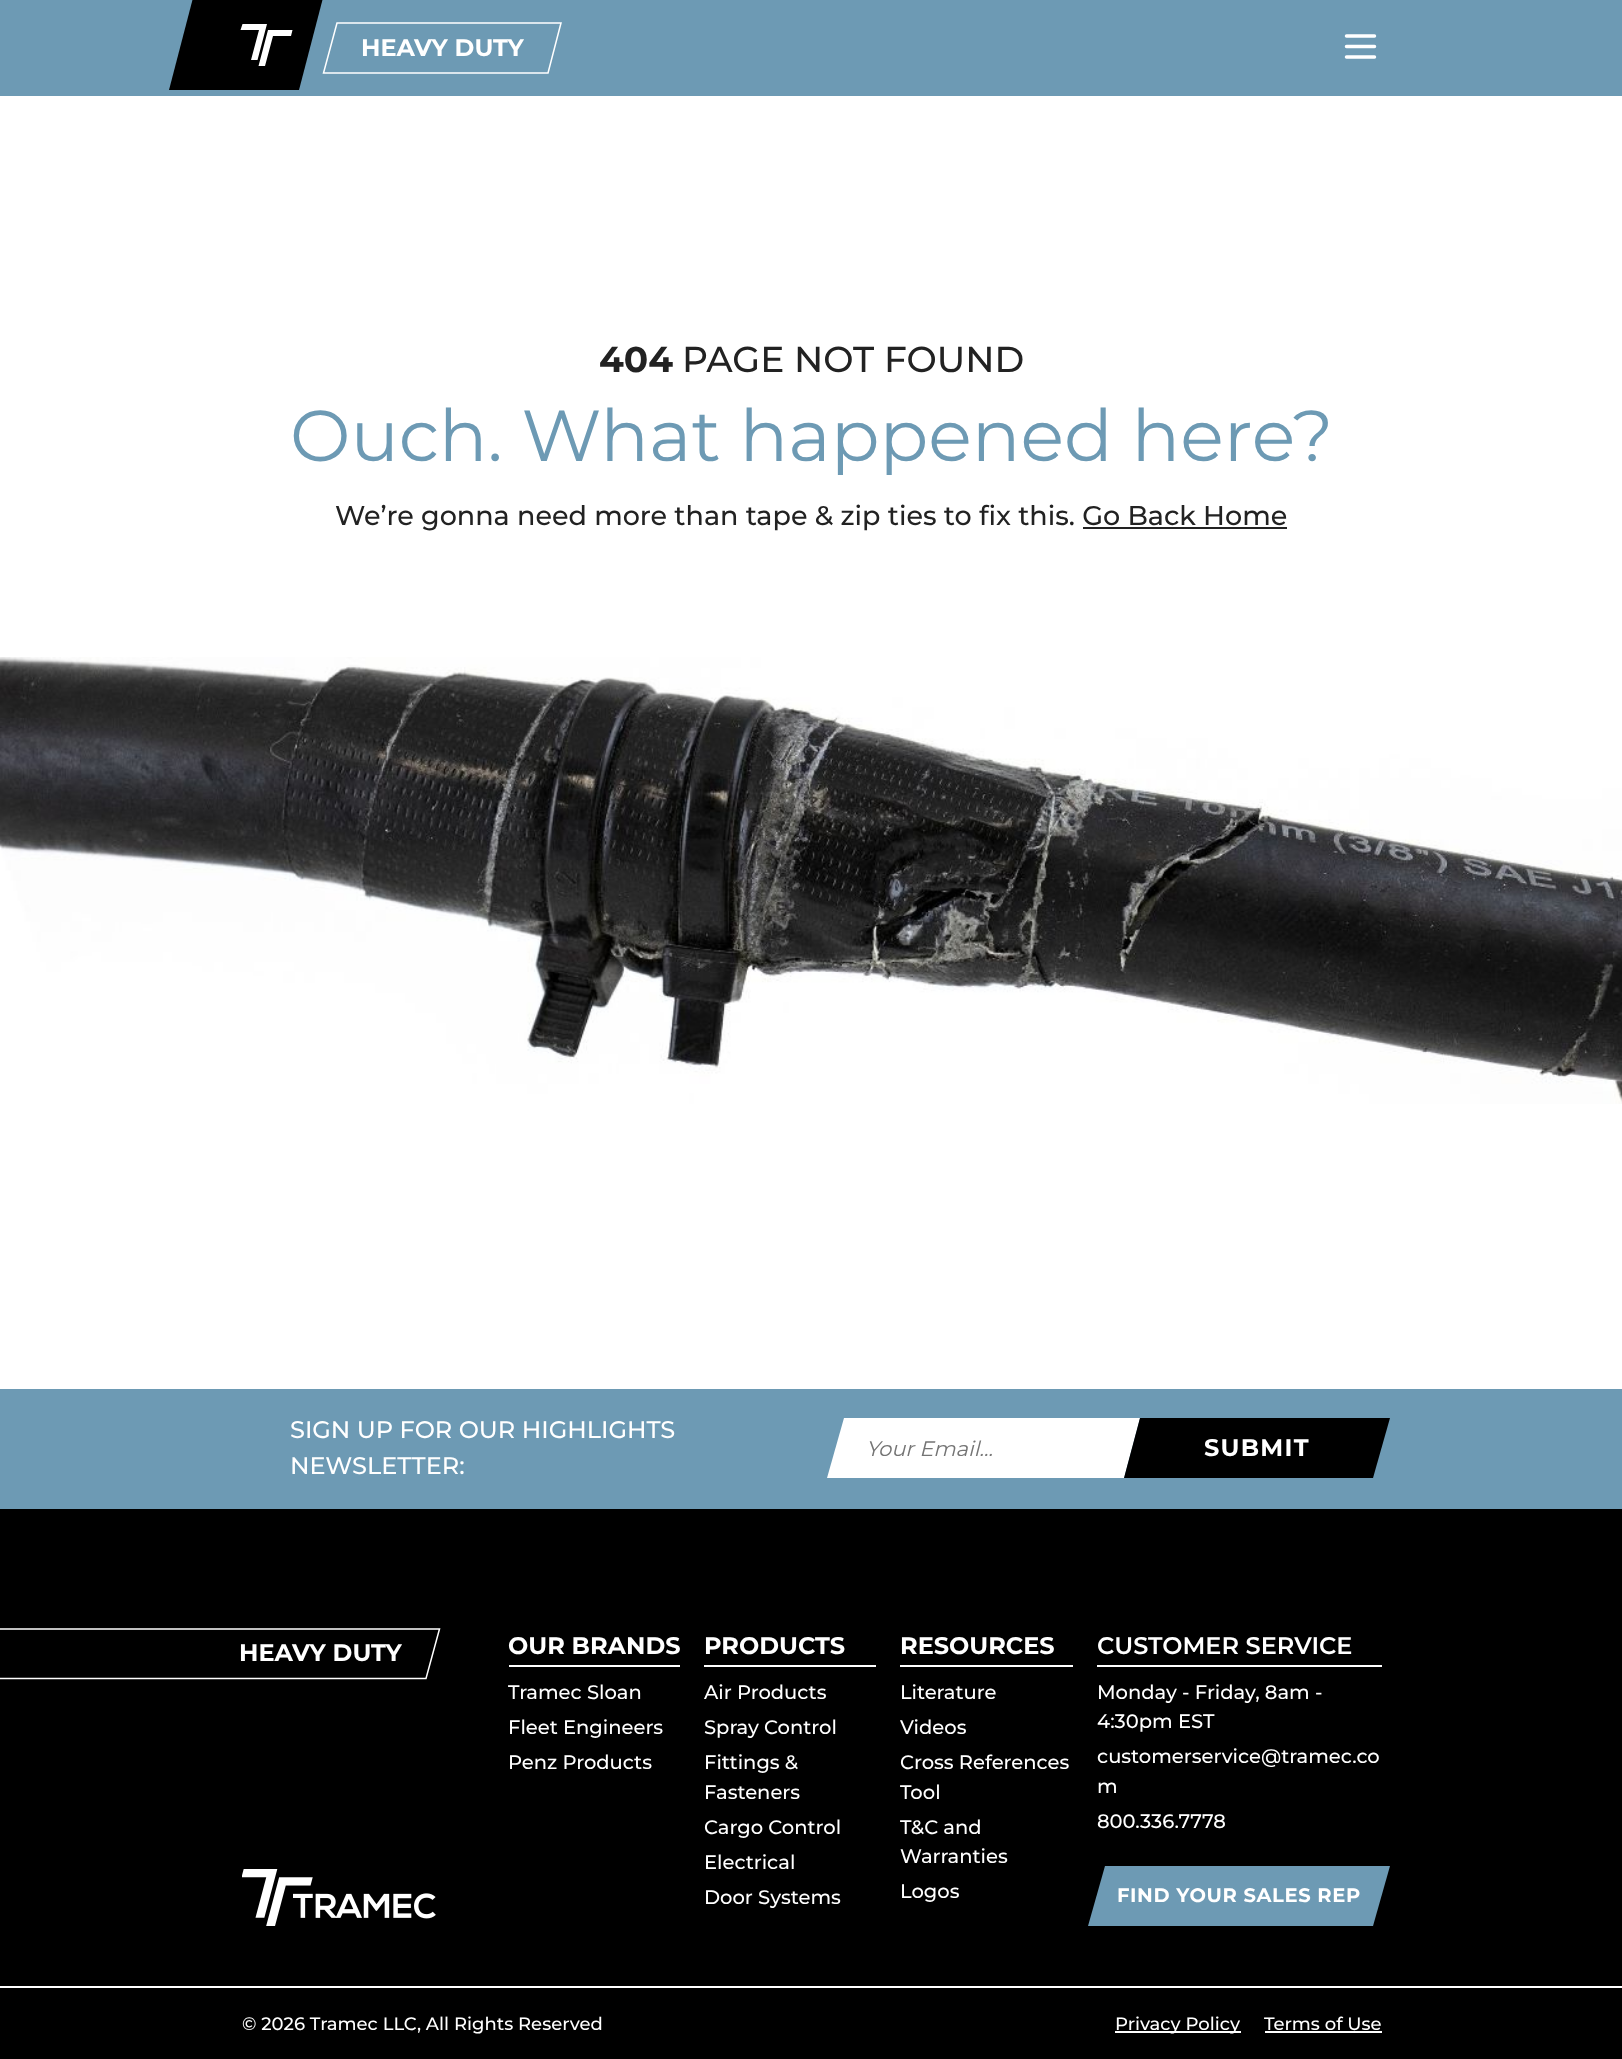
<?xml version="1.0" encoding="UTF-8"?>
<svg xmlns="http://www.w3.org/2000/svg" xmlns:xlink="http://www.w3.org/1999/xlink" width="1622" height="2059">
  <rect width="100%" height="100%" fill="#ffffff" />
  <rect width="1622" height="96" fill="#6d9ab4" />
  <path d="M 194 -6 h 130 l -25 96 h -130 z" fill="#000000" />
  <path d="M 258.5 66 h 6.5 l 8 -30 h 18 l 1.5 -6 h -24.5 z" fill="#ffffff" />
  <path d="M 242.5 24 l -2 6 h 18.5 l -8 30 h 6.5 l 9.5 -36 z" fill="#ffffff" />
  <path d="M 337 23 h 224 l -13 50 h -224.5 z" fill="none" stroke="#ffffff" stroke-width="1.5" />
  <path d="M 1346.5 36 h 28 m -28 10.5 h 28 m -28 10.5 h 28" fill="none" stroke="#ffffff" stroke-width="3.5" stroke-linecap="round" stroke-linejoin="round" />
  <rect x="1083" y="527" width="204" height="2" fill="#222222" />
  <image x="0" y="657" width="1622" height="447" xlink:href="image1.png" />
  <rect y="1509" width="1622" height="550" fill="#000000" />
  <rect y="1389" width="1622" height="120" fill="#6d9ab4" />
  <path d="M 844 1418 h 296 l -16 60 h -297 z" fill="#ffffff" />
  <path d="M 1140 1418 h 250 l -17 60 h -249 z" fill="#000000" />
  <path d="M -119 1629 h 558.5 l -13.5 49.5 h -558 z" fill="none" stroke="#ffffff" stroke-width="1.5" />
  <image x="242" y="1869" width="194" height="57" xlink:href="image2.png" />
  <rect x="509" y="1665" width="171" height="2" fill="#ffffff" />
  <rect x="704" y="1665" width="172" height="2" fill="#ffffff" />
  <rect x="900" y="1665" width="173" height="2" fill="#ffffff" />
  <rect x="1097" y="1665" width="285" height="2" fill="#ffffff" />
  <path d="M 1105 1866 h 285 l -17 60 h -285 z" fill="#6d9ab4" />
  <rect y="1986" width="1622" height="2" fill="#ffffff" />
  <rect x="1115" y="2031" width="126" height="2" fill="#ffffff" />
  <rect x="1265" y="2031" width="117" height="2" fill="#ffffff" />
  <text x="361" y="56" style="font-family: Montserrat; font-size: 24px; font-weight: bold; fill: #ffffff">HEAVY DUTY</text>
  <text x="599" y="372" style="font-family: Montserrat; font-size: 36px; font-weight: bold; fill: #222222">404</text>
  <text x="682" y="372" style="font-family: Montserrat; font-size: 36px; font-weight: 500; fill: #222222">PAGE NOT FOUND</text>
  <text x="290" y="461" style="font-family: Montserrat; font-size: 72px; fill: #6d9ab4">Ouch. What happened here?</text>
  <text x="335" y="525" style="font-family: Montserrat; font-size: 27px; font-weight: 500; fill: #222222">We’re gonna need more than tape &amp; zip ties to fix this. Go Back Home</text>
  <text x="290" y="1438" style="font-family: Montserrat; font-size: 24px; font-weight: 500; fill: #ffffff">SIGN UP FOR OUR HIGHLIGHTS</text>
  <text x="290" y="1474" style="font-family: Montserrat; font-size: 24px; font-weight: 500; fill: #ffffff">NEWSLETTER:</text>
  <text x="866" y="1456" style="font-family: Montserrat; font-size: 21px; font-style: italic; fill: #747474">Your Email...</text>
  <text x="1204" y="1456" style="font-family: Montserrat; font-size: 24px; font-weight: bold; letter-spacing: 1.25px; fill: #ffffff">SUBMIT</text>
  <text x="239" y="1661" style="font-family: Montserrat; font-size: 24px; font-weight: bold; fill: #ffffff">HEAVY DUTY</text>
  <text x="508" y="1654" style="font-family: Montserrat; font-size: 24px; font-weight: bold; fill: #ffffff">OUR BRANDS</text>
  <text x="508" y="1699" style="font-family: Montserrat; font-size: 19.5px; font-weight: 500; fill: #ffffff">Tramec Sloan</text>
  <text x="508" y="1734" style="font-family: Montserrat; font-size: 19.5px; font-weight: 500; fill: #ffffff">Fleet Engineers</text>
  <text x="508" y="1769" style="font-family: Montserrat; font-size: 19.5px; font-weight: 500; fill: #ffffff">Penz Products</text>
  <text x="704" y="1654" style="font-family: Montserrat; font-size: 24px; font-weight: bold; fill: #ffffff">PRODUCTS</text>
  <text x="704" y="1699" style="font-family: Montserrat; font-size: 19.5px; font-weight: 500; fill: #ffffff">Air Products</text>
  <text x="704" y="1734" style="font-family: Montserrat; font-size: 19.5px; font-weight: 500; fill: #ffffff">Spray Control</text>
  <text x="704" y="1769" style="font-family: Montserrat; font-size: 19.5px; font-weight: 500; fill: #ffffff">Fittings &amp;</text>
  <text x="704" y="1799" style="font-family: Montserrat; font-size: 19.5px; font-weight: 500; fill: #ffffff">Fasteners</text>
  <text x="704" y="1834" style="font-family: Montserrat; font-size: 19.5px; font-weight: 500; fill: #ffffff">Cargo Control</text>
  <text x="704" y="1869" style="font-family: Montserrat; font-size: 19.5px; font-weight: 500; fill: #ffffff">Electrical</text>
  <text x="704" y="1904" style="font-family: Montserrat; font-size: 19.5px; font-weight: 500; fill: #ffffff">Door Systems</text>
  <text x="900" y="1654" style="font-family: Montserrat; font-size: 24px; font-weight: bold; fill: #ffffff">RESOURCES</text>
  <text x="900" y="1699" style="font-family: Montserrat; font-size: 19.5px; font-weight: 500; fill: #ffffff">Literature</text>
  <text x="900" y="1734" style="font-family: Montserrat; font-size: 19.5px; font-weight: 500; fill: #ffffff">Videos</text>
  <text x="900" y="1769" style="font-family: Montserrat; font-size: 19.5px; font-weight: 500; fill: #ffffff">Cross References</text>
  <text x="900" y="1799" style="font-family: Montserrat; font-size: 19.5px; font-weight: 500; fill: #ffffff">Tool</text>
  <text x="900" y="1834" style="font-family: Montserrat; font-size: 19.5px; font-weight: 500; fill: #ffffff">T&amp;C and</text>
  <text x="900" y="1863" style="font-family: Montserrat; font-size: 19.5px; font-weight: 500; fill: #ffffff">Warranties</text>
  <text x="900" y="1898" style="font-family: Montserrat; font-size: 19.5px; font-weight: 500; fill: #ffffff">Logos</text>
  <text x="1097" y="1654" style="font-family: Montserrat; font-size: 24px; font-weight: 600; fill: #ffffff">CUSTOMER SERVICE</text>
  <text x="1097" y="1699" style="font-family: Montserrat; font-size: 19.5px; font-weight: 500; fill: #ffffff">Monday - Friday, 8am -</text>
  <text x="1097" y="1728" style="font-family: Montserrat; font-size: 19.5px; font-weight: 500; fill: #ffffff">4:30pm EST</text>
  <text x="1097" y="1763" style="font-family: Montserrat; font-size: 19.5px; font-weight: 500; fill: #ffffff">customerservice@tramec.co</text>
  <text x="1097" y="1793" style="font-family: Montserrat; font-size: 19.5px; font-weight: 500; fill: #ffffff">m</text>
  <text x="1097" y="1828" style="font-family: Montserrat; font-size: 19.5px; font-weight: 500; fill: #ffffff">800.336.7778</text>
  <text x="1117" y="1902" style="font-family: Montserrat; font-size: 19.5px; font-weight: bold; letter-spacing: 0.6px; fill: #ffffff">FIND YOUR SALES REP</text>
  <text x="242" y="2030" style="font-family: Montserrat; font-size: 18px; font-weight: 500; fill: #ffffff">© 2026 Tramec LLC, All Rights Reserved</text>
  <text x="1115" y="2030" style="font-family: Montserrat; font-size: 18px; font-weight: 500; fill: #ffffff">Privacy Policy</text>
  <text x="1264" y="2030" style="font-family: Montserrat; font-size: 18px; font-weight: 500; fill: #ffffff">Terms of Use</text>
</svg>
